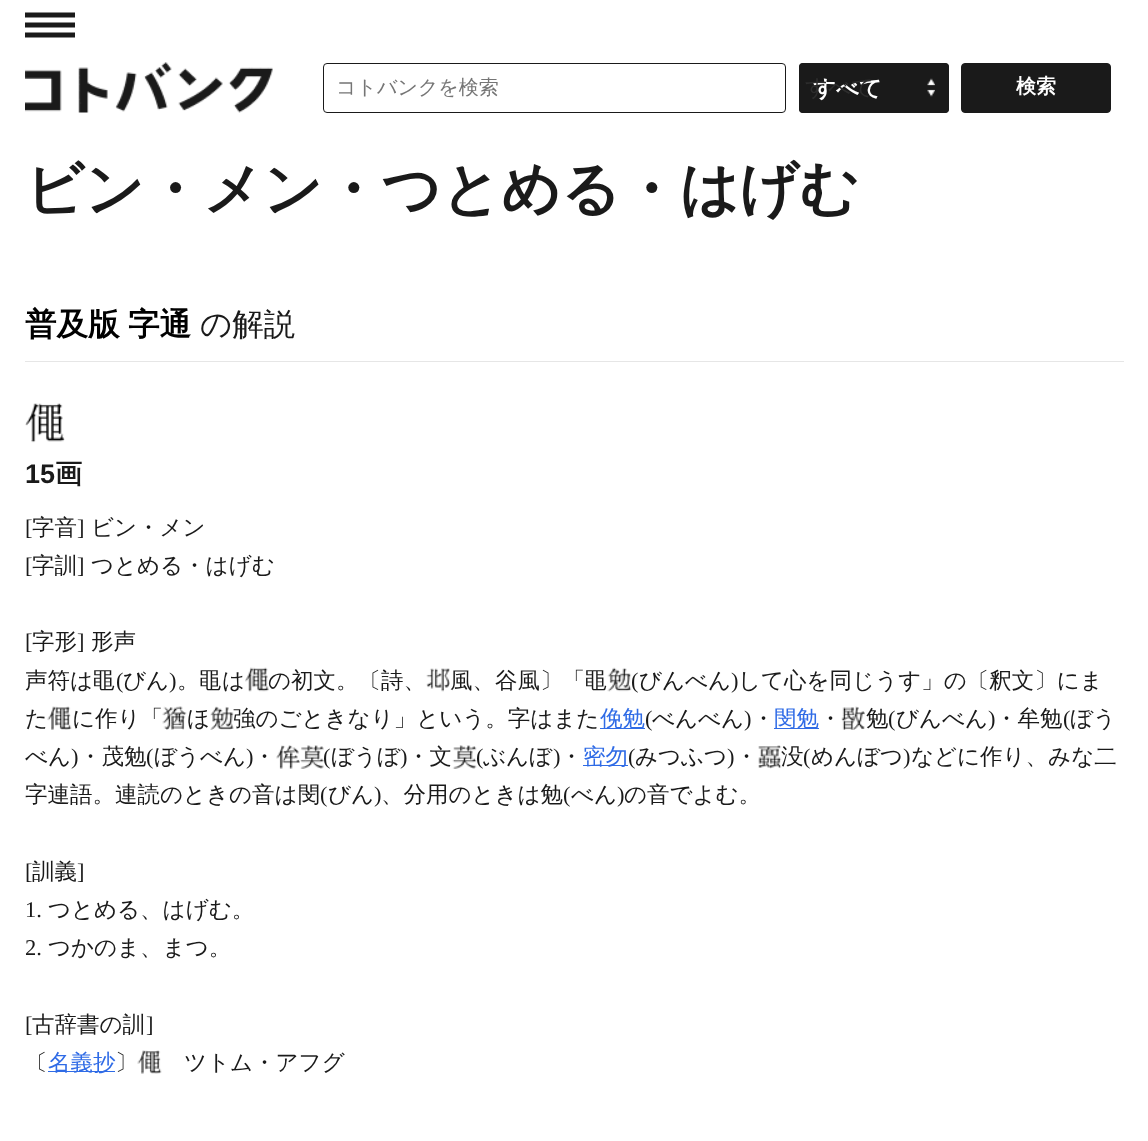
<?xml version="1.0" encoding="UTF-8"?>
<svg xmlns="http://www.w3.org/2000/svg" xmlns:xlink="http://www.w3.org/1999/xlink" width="1148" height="1141">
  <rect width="100%" height="100%" fill="#ffffff" />
  <image x="25" y="12" width="50" height="26" xlink:href="image1.png" />
  <image x="25" y="62" width="248" height="51" xlink:href="image2.png" />
  <rect x="323.5" y="63.5" width="462" height="49" rx="3.5" fill="none" stroke="#1a1a1a" />
  <rect x="799" y="63" width="150" height="50" rx="4" fill="#1a1a1a" />
  <image x="927" y="78" width="8" height="19" xlink:href="image3.png" />
  <rect x="799.5" y="63.5" width="149" height="49" rx="3.5" fill="none" stroke="#1a1a1a" />
  <rect x="961.5" y="63.5" width="149" height="49" rx="3.5" fill="#1a1a1a" stroke="#1a1a1a" />
  <rect x="25" y="361" width="1099" height="1" fill="#e6e6e6" />
  <image x="25" y="403" width="40" height="40" xlink:href="image4.png" />
  <image x="245" y="667" width="24" height="25" xlink:href="image5.png" />
  <image x="426" y="668" width="24" height="24" xlink:href="image6.png" />
  <image x="607" y="667" width="25" height="25" xlink:href="image7.png" />
  <image x="47" y="706" width="25" height="24" xlink:href="image8.png" />
  <image x="162" y="706" width="25" height="24" xlink:href="image9.png" />
  <image x="210" y="706" width="24" height="24" xlink:href="image10.png" />
  <rect x="600" y="728" width="45" height="1" fill="#2f6be6" />
  <rect x="774" y="728" width="45" height="1" fill="#2f6be6" />
  <image x="841" y="706" width="24" height="24" xlink:href="image11.png" />
  <image x="276" y="745" width="24" height="24" xlink:href="image12.png" />
  <image x="300" y="745" width="24" height="24" xlink:href="image13.png" />
  <image x="452" y="745" width="25" height="24" xlink:href="image14.png" />
  <rect x="583" y="765" width="45" height="1" fill="#2f6be6" />
  <image x="758" y="745" width="24" height="24" xlink:href="image15.png" />
  <rect x="48" y="1071" width="67" height="1" fill="#2f6be6" />
  <image x="137" y="1050" width="25" height="24" xlink:href="image16.png" />
  <text x="336" y="94" style="font-family: WenQuanYi Zen Hei; font-size: 20px; font-weight: 500; fill: #757575">コトバンクを検索</text>
  <text x="813" y="96" style="font-family: WenQuanYi Zen Hei; font-size: 22.5px; font-weight: bold; fill: #ffffff">すべて</text>
  <text x="805" y="95" style="font-family: WenQuanYi Zen Hei; font-size: 22.5px; font-weight: 500; fill: #2d2d2d">すべて</text>
  <text x="1016" y="93" style="font-family: WenQuanYi Zen Hei; font-size: 20px; font-weight: bold; fill: #ffffff">検索</text>
  <text x="25" y="209" style="font-family: WenQuanYi Zen Hei; font-size: 58.5px; font-weight: bold; fill: #1a1a1a">ビン・メン・つとめる・はげむ</text>
  <text x="25" y="335" word-spacing="-1" style="font-family: WenQuanYi Zen Hei; font-size: 31.5px; font-weight: bold; fill: #000000">普及版 字通</text>
  <text x="200" y="335" style="font-family: WenQuanYi Zen Hei; font-size: 31.5px; font-weight: 500; fill: #1a1a1a">の解説</text>
  <text x="25" y="483" style="font-family: Liberation Sans; font-size: 27px; font-weight: bold; fill: #1a1a1a">15</text>
  <text x="55" y="483" style="font-family: WenQuanYi Zen Hei; font-size: 27px; font-weight: bold; fill: #1a1a1a">画</text>
  <text x="25" y="535" style="font-family: Liberation Serif; font-size: 22.5px; fill: #1a1a1a">[</text>
  <text x="32" y="535" style="font-family: WenQuanYi Zen Hei; font-size: 22.5px; font-weight: 500; fill: #1a1a1a">字音</text>
  <text x="77" y="535" style="font-family: Liberation Serif; font-size: 22.5px; fill: #1a1a1a">]</text>
  <text x="91" y="535" style="font-family: WenQuanYi Zen Hei; font-size: 22.5px; font-weight: 500; fill: #1a1a1a">ビン・メン</text>
  <text x="25" y="573" style="font-family: Liberation Serif; font-size: 22.5px; fill: #1a1a1a">[</text>
  <text x="32" y="573" style="font-family: WenQuanYi Zen Hei; font-size: 22.5px; font-weight: 500; fill: #1a1a1a">字訓</text>
  <text x="77" y="573" style="font-family: Liberation Serif; font-size: 22.5px; fill: #1a1a1a">]</text>
  <text x="91" y="573" style="font-family: WenQuanYi Zen Hei; font-size: 22.5px; font-weight: 500; fill: #1a1a1a">つとめる・はげむ</text>
  <text x="25" y="649" style="font-family: Liberation Serif; font-size: 22.5px; fill: #1a1a1a">[</text>
  <text x="32" y="649" style="font-family: WenQuanYi Zen Hei; font-size: 22.5px; font-weight: 500; fill: #1a1a1a">字形</text>
  <text x="77" y="649" style="font-family: Liberation Serif; font-size: 22.5px; fill: #1a1a1a">]</text>
  <text x="91" y="649" style="font-family: WenQuanYi Zen Hei; font-size: 22.5px; font-weight: 500; fill: #1a1a1a">形声</text>
  <text x="25" y="688" style="font-family: WenQuanYi Zen Hei; font-size: 22.5px; font-weight: 500; fill: #1a1a1a">声符は黽</text>
  <text x="116" y="688" style="font-family: Liberation Serif; font-size: 22.5px; fill: #1a1a1a">(</text>
  <text x="123" y="688" style="font-family: WenQuanYi Zen Hei; font-size: 22.5px; font-weight: 500; fill: #1a1a1a">びん</text>
  <text x="169" y="688" style="font-family: Liberation Serif; font-size: 22.5px; fill: #1a1a1a">)</text>
  <text x="177" y="688" style="font-family: WenQuanYi Zen Hei; font-size: 22.5px; font-weight: 500; fill: #1a1a1a">。黽は</text>
  <text x="268" y="688" style="font-family: WenQuanYi Zen Hei; font-size: 22.5px; font-weight: 500; fill: #1a1a1a">の初文。〔詩、</text>
  <text x="450" y="688" style="font-family: WenQuanYi Zen Hei; font-size: 22.5px; font-weight: 500; fill: #1a1a1a">風、谷風〕「黽</text>
  <text x="631" y="688" style="font-family: Liberation Serif; font-size: 22.5px; fill: #1a1a1a">(</text>
  <text x="639" y="688" style="font-family: WenQuanYi Zen Hei; font-size: 22.5px; font-weight: 500; fill: #1a1a1a">びんべん</text>
  <text x="731" y="688" style="font-family: Liberation Serif; font-size: 22.5px; fill: #1a1a1a">)</text>
  <text x="738" y="688" style="font-family: WenQuanYi Zen Hei; font-size: 22.5px; font-weight: 500; fill: #1a1a1a">して心を同じうす」の〔釈文〕にま</text>
  <text x="25" y="726" style="font-family: WenQuanYi Zen Hei; font-size: 22.5px; font-weight: 500; fill: #1a1a1a">た</text>
  <text x="72" y="726" style="font-family: WenQuanYi Zen Hei; font-size: 22.5px; font-weight: 500; fill: #1a1a1a">に作り「</text>
  <text x="187" y="726" style="font-family: WenQuanYi Zen Hei; font-size: 22.5px; font-weight: 500; fill: #1a1a1a">ほ</text>
  <text x="233" y="726" style="font-family: WenQuanYi Zen Hei; font-size: 22.5px; font-weight: 500; fill: #1a1a1a">強のごときなり」という。字はまた</text>
  <text x="600" y="726" style="font-family: WenQuanYi Zen Hei; font-size: 22.5px; font-weight: 500; fill: #2f6be6">俛勉</text>
  <text x="645" y="726" style="font-family: Liberation Serif; font-size: 22.5px; fill: #1a1a1a">(</text>
  <text x="652" y="726" style="font-family: WenQuanYi Zen Hei; font-size: 22.5px; font-weight: 500; fill: #1a1a1a">べんべん</text>
  <text x="744" y="726" style="font-family: Liberation Serif; font-size: 22.5px; fill: #1a1a1a">)</text>
  <text x="752" y="726" style="font-family: WenQuanYi Zen Hei; font-size: 22.5px; font-weight: 500; fill: #1a1a1a">・</text>
  <text x="774" y="726" style="font-family: WenQuanYi Zen Hei; font-size: 22.5px; font-weight: 500; fill: #2f6be6">閔勉</text>
  <text x="819" y="726" style="font-family: WenQuanYi Zen Hei; font-size: 22.5px; font-weight: 500; fill: #1a1a1a">・</text>
  <text x="866" y="726" style="font-family: WenQuanYi Zen Hei; font-size: 22.5px; font-weight: 500; fill: #1a1a1a">勉</text>
  <text x="888" y="726" style="font-family: Liberation Serif; font-size: 22.5px; fill: #1a1a1a">(</text>
  <text x="896" y="726" style="font-family: WenQuanYi Zen Hei; font-size: 22.5px; font-weight: 500; fill: #1a1a1a">びんべん</text>
  <text x="988" y="726" style="font-family: Liberation Serif; font-size: 22.5px; fill: #1a1a1a">)</text>
  <text x="995" y="726" style="font-family: WenQuanYi Zen Hei; font-size: 22.5px; font-weight: 500; fill: #1a1a1a">・牟勉</text>
  <text x="1063" y="726" style="font-family: Liberation Serif; font-size: 22.5px; fill: #1a1a1a">(</text>
  <text x="1070" y="726" style="font-family: WenQuanYi Zen Hei; font-size: 22.5px; font-weight: 500; fill: #1a1a1a">ぼう</text>
  <text x="25" y="764" style="font-family: WenQuanYi Zen Hei; font-size: 22.5px; font-weight: 500; fill: #1a1a1a">べん</text>
  <text x="71" y="764" style="font-family: Liberation Serif; font-size: 22.5px; fill: #1a1a1a">)</text>
  <text x="79" y="764" style="font-family: WenQuanYi Zen Hei; font-size: 22.5px; font-weight: 500; fill: #1a1a1a">・茂勉</text>
  <text x="146" y="764" style="font-family: Liberation Serif; font-size: 22.5px; fill: #1a1a1a">(</text>
  <text x="154" y="764" style="font-family: WenQuanYi Zen Hei; font-size: 22.5px; font-weight: 500; fill: #1a1a1a">ぼうべん</text>
  <text x="246" y="764" style="font-family: Liberation Serif; font-size: 22.5px; fill: #1a1a1a">)</text>
  <text x="253" y="764" style="font-family: WenQuanYi Zen Hei; font-size: 22.5px; font-weight: 500; fill: #1a1a1a">・</text>
  <text x="323" y="764" style="font-family: Liberation Serif; font-size: 22.5px; fill: #1a1a1a">(</text>
  <text x="331" y="764" style="font-family: WenQuanYi Zen Hei; font-size: 22.5px; font-weight: 500; fill: #1a1a1a">ぼうぼ</text>
  <text x="400" y="764" style="font-family: Liberation Serif; font-size: 22.5px; fill: #1a1a1a">)</text>
  <text x="407" y="764" style="font-family: WenQuanYi Zen Hei; font-size: 22.5px; font-weight: 500; fill: #1a1a1a">・文</text>
  <text x="476" y="764" style="font-family: Liberation Serif; font-size: 22.5px; fill: #1a1a1a">(</text>
  <text x="483" y="764" style="font-family: WenQuanYi Zen Hei; font-size: 22.5px; font-weight: 500; fill: #1a1a1a">ぶんぼ</text>
  <text x="553" y="764" style="font-family: Liberation Serif; font-size: 22.5px; fill: #1a1a1a">)</text>
  <text x="560" y="764" style="font-family: WenQuanYi Zen Hei; font-size: 22.5px; font-weight: 500; fill: #1a1a1a">・</text>
  <text x="583" y="764" style="font-family: WenQuanYi Zen Hei; font-size: 22.5px; font-weight: 500; fill: #2f6be6">密勿</text>
  <text x="628" y="764" style="font-family: Liberation Serif; font-size: 22.5px; fill: #1a1a1a">(</text>
  <text x="635" y="764" style="font-family: WenQuanYi Zen Hei; font-size: 22.5px; font-weight: 500; fill: #1a1a1a">みつふつ</text>
  <text x="727" y="764" style="font-family: Liberation Serif; font-size: 22.5px; fill: #1a1a1a">)</text>
  <text x="735" y="764" style="font-family: WenQuanYi Zen Hei; font-size: 22.5px; font-weight: 500; fill: #1a1a1a">・</text>
  <text x="781" y="764" style="font-family: WenQuanYi Zen Hei; font-size: 22.5px; font-weight: 500; fill: #1a1a1a">没</text>
  <text x="803" y="764" style="font-family: Liberation Serif; font-size: 22.5px; fill: #1a1a1a">(</text>
  <text x="811" y="764" style="font-family: WenQuanYi Zen Hei; font-size: 22.5px; font-weight: 500; fill: #1a1a1a">めんぼつ</text>
  <text x="903" y="764" style="font-family: Liberation Serif; font-size: 22.5px; fill: #1a1a1a">)</text>
  <text x="911" y="764" style="font-family: WenQuanYi Zen Hei; font-size: 22.5px; font-weight: 500; fill: #1a1a1a">などに作り、みな二</text>
  <text x="25" y="802" style="font-family: WenQuanYi Zen Hei; font-size: 22.5px; font-weight: 500; fill: #1a1a1a">字連語。連読のときの音は閔</text>
  <text x="320" y="802" style="font-family: Liberation Serif; font-size: 22.5px; fill: #1a1a1a">(</text>
  <text x="328" y="802" style="font-family: WenQuanYi Zen Hei; font-size: 22.5px; font-weight: 500; fill: #1a1a1a">びん</text>
  <text x="374" y="802" style="font-family: Liberation Serif; font-size: 22.5px; fill: #1a1a1a">)</text>
  <text x="381" y="802" style="font-family: WenQuanYi Zen Hei; font-size: 22.5px; font-weight: 500; fill: #1a1a1a">、分用のときは勉</text>
  <text x="563" y="802" style="font-family: Liberation Serif; font-size: 22.5px; fill: #1a1a1a">(</text>
  <text x="571" y="802" style="font-family: WenQuanYi Zen Hei; font-size: 22.5px; font-weight: 500; fill: #1a1a1a">べん</text>
  <text x="617" y="802" style="font-family: Liberation Serif; font-size: 22.5px; fill: #1a1a1a">)</text>
  <text x="624" y="802" style="font-family: WenQuanYi Zen Hei; font-size: 22.5px; font-weight: 500; fill: #1a1a1a">の音でよむ。</text>
  <text x="25" y="879" style="font-family: Liberation Serif; font-size: 22.5px; fill: #1a1a1a">[</text>
  <text x="32" y="879" style="font-family: WenQuanYi Zen Hei; font-size: 22.5px; font-weight: 500; fill: #1a1a1a">訓義</text>
  <text x="77" y="879" style="font-family: Liberation Serif; font-size: 22.5px; fill: #1a1a1a">]</text>
  <text x="25" y="917" style="font-family: Liberation Serif; font-size: 22.5px; fill: #1a1a1a">1.</text>
  <text x="48" y="917" style="font-family: WenQuanYi Zen Hei; font-size: 22.5px; font-weight: 500; fill: #1a1a1a">つとめる、はげむ。</text>
  <text x="25" y="955" style="font-family: Liberation Serif; font-size: 22.5px; fill: #1a1a1a">2.</text>
  <text x="48" y="955" style="font-family: WenQuanYi Zen Hei; font-size: 22.5px; font-weight: 500; fill: #1a1a1a">つかのま、まつ。</text>
  <text x="25" y="1032" style="font-family: Liberation Serif; font-size: 22.5px; fill: #1a1a1a">[</text>
  <text x="32" y="1032" style="font-family: WenQuanYi Zen Hei; font-size: 22.5px; font-weight: 500; fill: #1a1a1a">古辞書の訓</text>
  <text x="146" y="1032" style="font-family: Liberation Serif; font-size: 22.5px; fill: #1a1a1a">]</text>
  <text x="25" y="1070" style="font-family: WenQuanYi Zen Hei; font-size: 22.5px; font-weight: 500; fill: #1a1a1a">〔</text>
  <text x="48" y="1070" style="font-family: WenQuanYi Zen Hei; font-size: 22.5px; font-weight: 500; fill: #2f6be6">名義抄</text>
  <text x="115" y="1070" style="font-family: WenQuanYi Zen Hei; font-size: 22.5px; font-weight: 500; fill: #1a1a1a">〕</text>
  <text x="184" y="1070" style="font-family: WenQuanYi Zen Hei; font-size: 22.5px; font-weight: 500; fill: #1a1a1a">ツトム・アフグ</text>
</svg>
